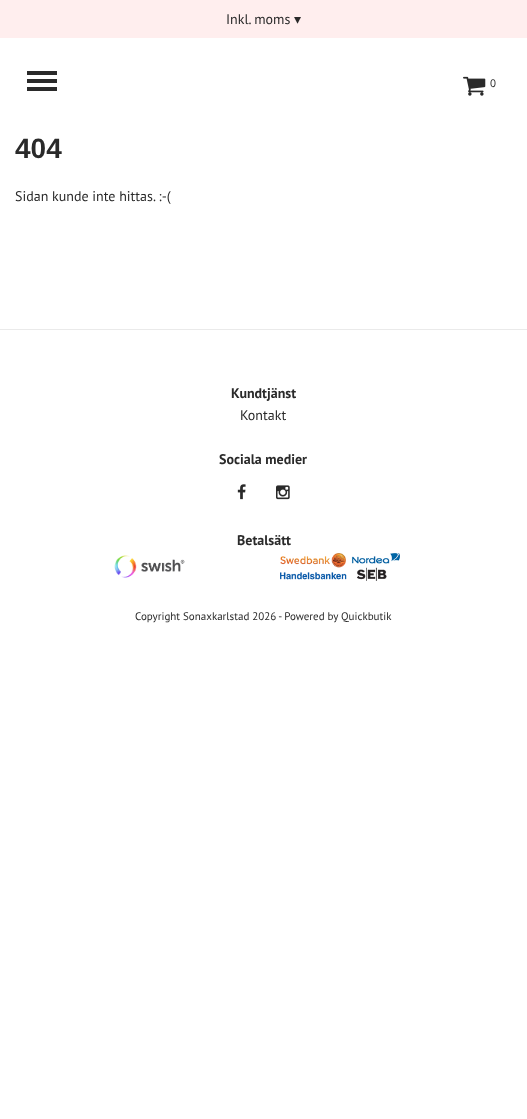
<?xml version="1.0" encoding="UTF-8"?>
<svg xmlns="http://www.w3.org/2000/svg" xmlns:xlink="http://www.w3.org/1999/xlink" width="527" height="1119">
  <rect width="100%" height="100%" fill="#ffffff" />
  <rect width="527" height="38" fill="#ffeeee" />
  <rect x="27" y="79" width="30" height="4" fill="#2a2a2a" />
  <rect x="27" y="71" width="30" height="4" fill="#2a2a2a" />
  <rect x="27" y="87" width="30" height="4" fill="#2a2a2a" />
  <image x="463" y="76" width="23" height="20" xlink:href="image1.png" />
  <rect y="329" width="527" height="1" fill="#eaeaea" />
  <image x="237" y="484" width="9" height="16" xlink:href="image2.png" />
  <image x="276" y="485" width="14" height="15" xlink:href="image3.png" />
  <image x="114" y="555" width="71" height="23" xlink:href="image4.png" />
  <image x="280" y="553" width="120" height="28" xlink:href="image5.png" />
  <text x="226" y="24" style="font-family: PT Sans; font-size: 14px; fill: #2a2a2a">Inkl. moms</text>
  <text x="294" y="24" style="font-family: DejaVu Sans; font-size: 14px; fill: #2a2a2a">▾</text>
  <text x="490" y="87" style="font-family: PT Sans; font-size: 11px; fill: #2a2a2a">0</text>
  <text x="15" y="158" style="font-family: Arimo; font-size: 28px; font-weight: bold; fill: #2a2a2a">404</text>
  <text x="15" y="201" style="font-family: PT Sans; font-size: 14px; fill: #2a2a2a">Sidan kunde inte hittas. :-(</text>
  <text x="231" y="398" style="font-family: PT Sans; font-size: 14px; font-weight: bold; fill: #2a2a2a">Kundtjänst</text>
  <text x="240" y="420" style="font-family: PT Sans; font-size: 14px; fill: #2a2a2a">Kontakt</text>
  <text x="219" y="464" style="font-family: PT Sans; font-size: 14px; font-weight: bold; fill: #2a2a2a">Sociala medier</text>
  <text x="237" y="545" style="font-family: PT Sans; font-size: 14px; font-weight: bold; fill: #2a2a2a">Betalsätt</text>
  <text x="135" y="620" style="font-family: PT Sans; font-size: 11px; fill: #2a2a2a">Copyright Sonaxkarlstad 2026 - Powered by Quickbutik</text>
</svg>
